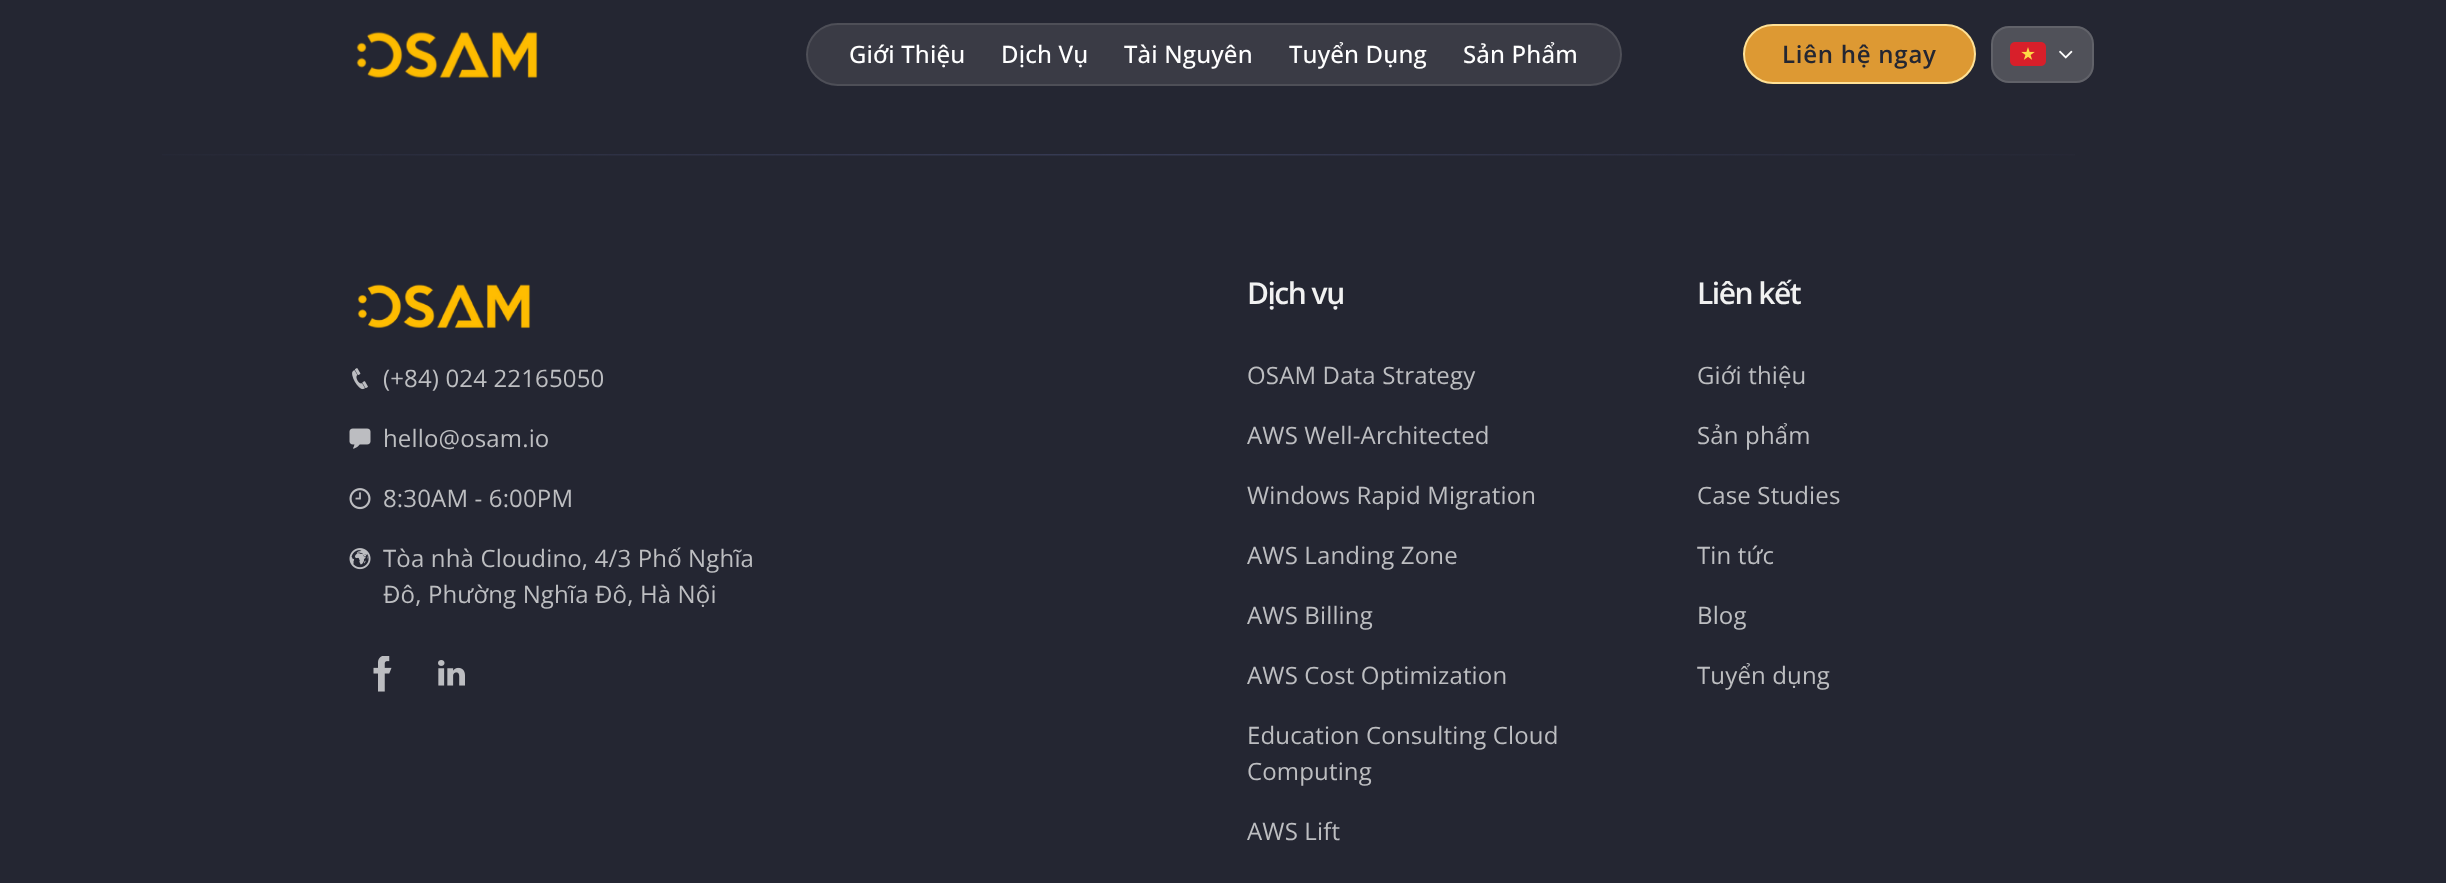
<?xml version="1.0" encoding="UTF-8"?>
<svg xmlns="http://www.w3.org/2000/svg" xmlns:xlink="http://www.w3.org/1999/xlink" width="2446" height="883">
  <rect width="100%" height="100%" fill="#242632" />
  <image x="356" y="31" width="182" height="47" xlink:href="image1.png" />
  <rect x="806" y="23" width="816" height="63" rx="31.5" fill="#3a3b45" />
  <rect x="807" y="24" width="814" height="61" rx="30.5" fill="none" stroke="#ffffff" stroke-opacity="0.1" stroke-width="2" />
  <rect x="1744" y="25" width="231" height="58" rx="29" fill="#dd9933" stroke="#ffe196" stroke-width="2" />
  <rect x="1991" y="26" width="103" height="57" rx="18" fill="#505159" />
  <rect x="1992" y="27" width="101" height="55" rx="17" fill="none" stroke="#ffffff" stroke-opacity="0.1" stroke-width="2" />
  <image x="2010" y="42" width="36" height="24" xlink:href="image2.png" />
  <image x="2059" y="50" width="14" height="9" xlink:href="image3.png" />
  <image x="162" y="154" width="1913" height="2" xlink:href="image4.png" />
  <image x="357" y="284" width="174" height="45" xlink:href="image5.png" />
  <image x="352" y="368" width="16" height="22" xlink:href="image6.png" />
  <image x="349" y="428" width="22" height="21" xlink:href="image7.png" />
  <image x="349" y="488" width="22" height="22" xlink:href="image8.png" />
  <image x="349" y="548" width="22" height="22" xlink:href="image9.png" />
  <image x="373" y="656" width="19" height="36" xlink:href="image10.png" />
  <image x="438" y="660" width="27" height="26" xlink:href="image11.png" />
  <text x="849" y="63" style="font-family: Open Sans; font-size: 24px; font-weight: 500; letter-spacing: 0.15px; fill: #ffffff">Giới Thiệu</text>
  <text x="1001" y="63" style="font-family: Open Sans; font-size: 24px; font-weight: 500; letter-spacing: 0.15px; fill: #ffffff">Dịch Vụ</text>
  <text x="1124" y="63" style="font-family: Open Sans; font-size: 24px; font-weight: 500; letter-spacing: 0.15px; fill: #ffffff">Tài Nguyên</text>
  <text x="1289" y="63" style="font-family: Open Sans; font-size: 24px; font-weight: 500; letter-spacing: 0.15px; fill: #ffffff">Tuyển Dụng</text>
  <text x="1463" y="63" style="font-family: Open Sans; font-size: 24px; font-weight: 500; letter-spacing: 0.15px; fill: #ffffff">Sản Phẩm</text>
  <text x="1782" y="63" style="font-family: Open Sans; font-size: 24px; font-weight: 600; letter-spacing: 0.75px; fill: #232632">Liên hệ ngay</text>
  <text x="383" y="387" style="font-family: Open Sans; font-size: 24px; letter-spacing: 0.15px; fill: #bdbec1">(+84) 024 22165050</text>
  <text x="383" y="447" style="font-family: Open Sans; font-size: 24px; letter-spacing: 0.15px; fill: #bdbec1">hello@osam.io</text>
  <text x="383" y="507" style="font-family: Open Sans; font-size: 24px; letter-spacing: 0.15px; fill: #bdbec1">8:30AM - 6:00PM</text>
  <text x="383" y="567" style="font-family: Open Sans; font-size: 24px; letter-spacing: 0.15px; fill: #bdbec1">Tòa nhà Cloudino, 4/3 Phố Nghĩa</text>
  <text x="383" y="603" style="font-family: Open Sans; font-size: 24px; letter-spacing: 0.15px; fill: #bdbec1">Đô, Phường Nghĩa Đô, Hà Nội</text>
  <text x="1247" y="304" style="font-family: Open Sans; font-size: 30px; font-weight: 600; letter-spacing: -1.5px; fill: #f1f1f1">Dịch vụ</text>
  <text x="1247" y="384" style="font-family: Open Sans; font-size: 24px; letter-spacing: 0.15px; fill: #bdbec1">OSAM Data Strategy</text>
  <text x="1247" y="444" style="font-family: Open Sans; font-size: 24px; letter-spacing: 0.15px; fill: #bdbec1">AWS Well-Architected</text>
  <text x="1247" y="504" style="font-family: Open Sans; font-size: 24px; letter-spacing: 0.15px; fill: #bdbec1">Windows Rapid Migration</text>
  <text x="1247" y="564" style="font-family: Open Sans; font-size: 24px; letter-spacing: 0.15px; fill: #bdbec1">AWS Landing Zone</text>
  <text x="1247" y="624" style="font-family: Open Sans; font-size: 24px; letter-spacing: 0.15px; fill: #bdbec1">AWS Billing</text>
  <text x="1247" y="684" style="font-family: Open Sans; font-size: 24px; letter-spacing: 0.15px; fill: #bdbec1">AWS Cost Optimization</text>
  <text x="1247" y="744" style="font-family: Open Sans; font-size: 24px; letter-spacing: 0.15px; fill: #bdbec1">Education Consulting Cloud</text>
  <text x="1247" y="780" style="font-family: Open Sans; font-size: 24px; letter-spacing: 0.15px; fill: #bdbec1">Computing</text>
  <text x="1247" y="840" style="font-family: Open Sans; font-size: 24px; letter-spacing: 0.15px; fill: #bdbec1">AWS Lift</text>
  <text x="1697" y="304" style="font-family: Open Sans; font-size: 30px; font-weight: 600; letter-spacing: -1.5px; fill: #f1f1f1">Liên kết</text>
  <text x="1697" y="384" style="font-family: Open Sans; font-size: 24px; letter-spacing: 0.15px; fill: #bdbec1">Giới thiệu</text>
  <text x="1697" y="444" style="font-family: Open Sans; font-size: 24px; letter-spacing: 0.15px; fill: #bdbec1">Sản phẩm</text>
  <text x="1697" y="504" style="font-family: Open Sans; font-size: 24px; letter-spacing: 0.15px; fill: #bdbec1">Case Studies</text>
  <text x="1697" y="564" style="font-family: Open Sans; font-size: 24px; letter-spacing: 0.15px; fill: #bdbec1">Tin tức</text>
  <text x="1697" y="624" style="font-family: Open Sans; font-size: 24px; letter-spacing: 0.15px; fill: #bdbec1">Blog</text>
  <text x="1697" y="684" style="font-family: Open Sans; font-size: 24px; letter-spacing: 0.15px; fill: #bdbec1">Tuyển dụng</text>
</svg>
